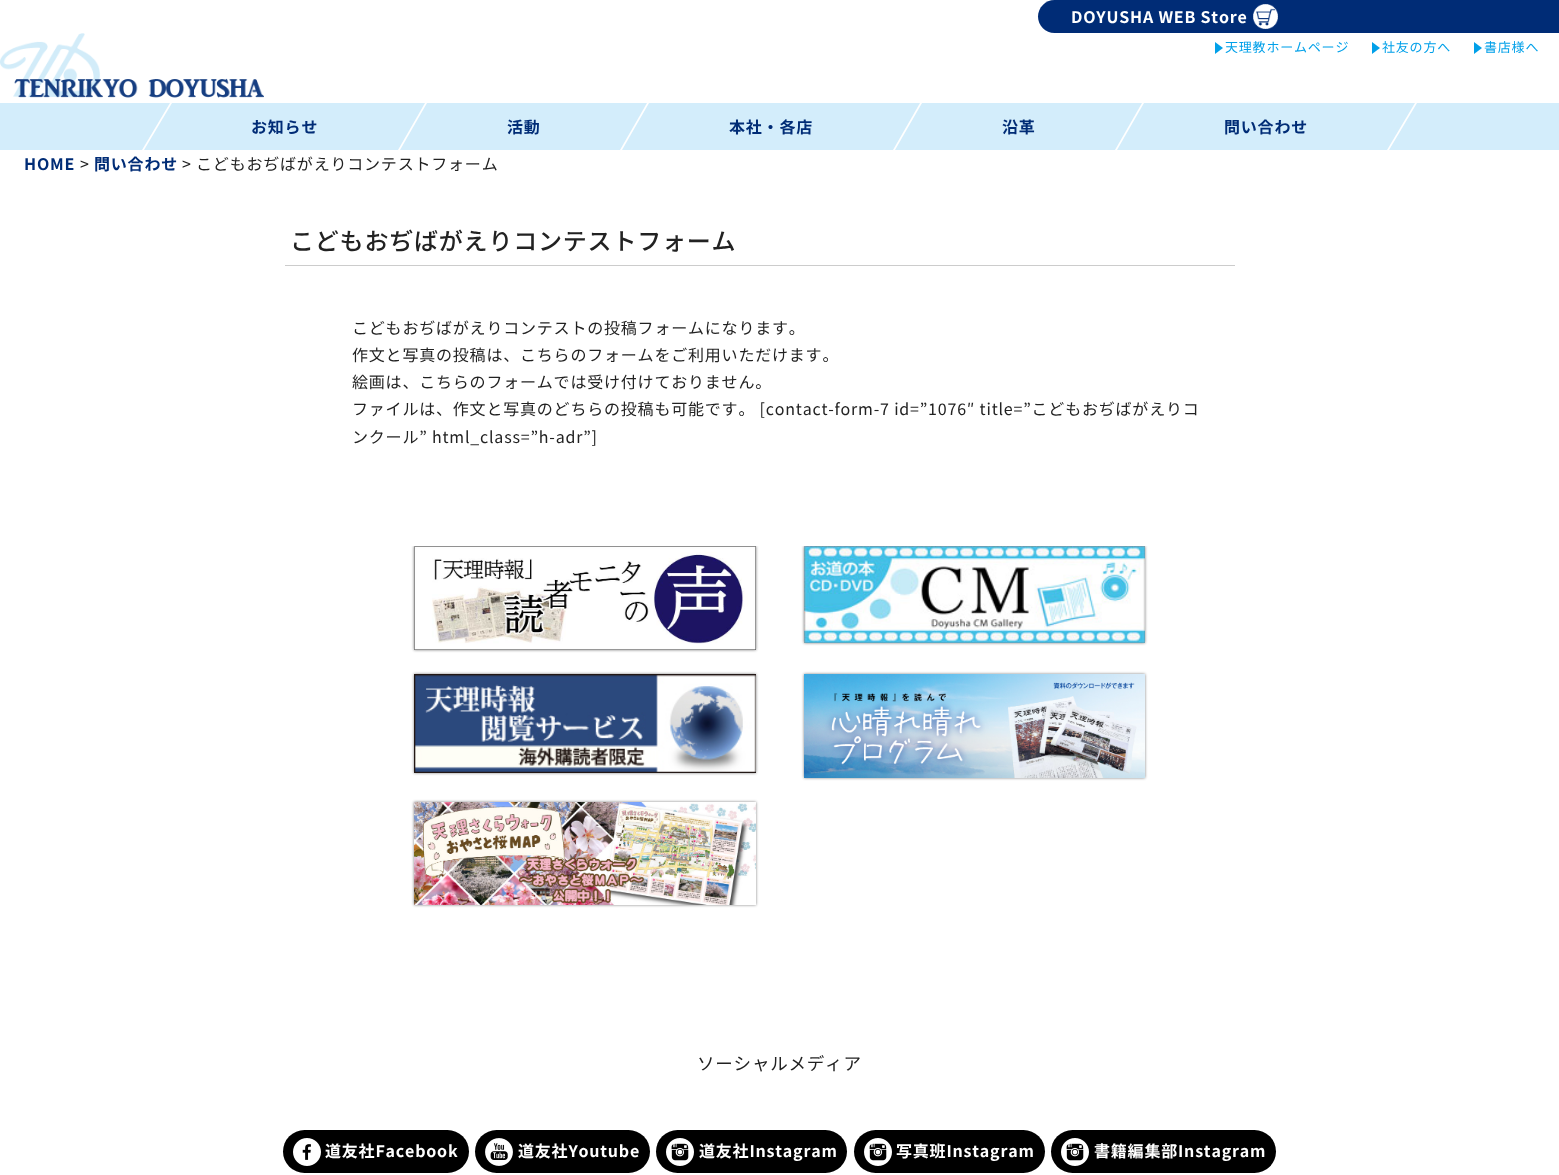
<?xml version="1.0" encoding="UTF-8"?>
<svg xmlns="http://www.w3.org/2000/svg" xmlns:xlink="http://www.w3.org/1999/xlink" width="1559" height="1175">
  <style>*{font-kerning:none!important;font-variant-ligatures:none!important}</style>
  <defs>
    <clipPath id="clip1"><rect x="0" y="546" width="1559" height="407" /></clipPath>
  </defs>
  <rect width="100%" height="100%" fill="#ffffff" />
  <path d="M 1054.5 0 h 504.5 v 33 h -504.5 c -9 0 -16.5 -7.5 -16.5 -16.5 c 0 -9 7.5 -16.5 16.5 -16.5 z" fill="#002c76" />
  <image x="1253" y="4" width="25" height="25" xlink:href="image1.png" />
  <image x="0" y="33" width="264" height="65" xlink:href="image2.png" />
  <path d="M 1215 54 v -12 l 8 6 z" fill="#01a0e9" />
  <path d="M 1372 54 v -12 l 8 6 z" fill="#01a0e9" />
  <path d="M 1474 54 v -12 l 8 6 z" fill="#01a0e9" />
  <rect y="103" width="1559" height="47" fill="#d3edfb" />
  <path d="M 170 103 h 2 l -28 47 h -2 z" fill="#ffffff" />
  <path d="M 425 103 h 2 l -27 47 h -2 z" fill="#ffffff" />
  <path d="M 647 103 h 2 l -27 47 h -2 z" fill="#ffffff" />
  <path d="M 920 103 h 2 l -27 47 h -2 z" fill="#ffffff" />
  <path d="M 1415 103 h 2 l -28 47 h -2 z" fill="#ffffff" />
  <path d="M 1142 103 h 2 l -27 47 h -2 z" fill="#ffffff" />
  <rect x="285" y="265" width="950" height="1" fill="#cccccc" />
  <g clip-path="url(#clip1)">
    <rect x="414" y="546" width="342" height="104" fill="#808080" filter="blur(1.5px)" />
  </g>
  <image x="414" y="546" width="342" height="104" xlink:href="image3.png" />
  <g clip-path="url(#clip1)">
    <rect x="804" y="546" width="341" height="97" fill="#808080" filter="blur(1.5px)" />
  </g>
  <image x="804" y="546" width="341" height="97" xlink:href="image4.png" />
  <rect x="414" y="674" width="342" height="99" fill="#808080" filter="blur(1.5px)" />
  <image x="414" y="674" width="342" height="99" xlink:href="image5.png" />
  <rect x="804" y="674" width="341" height="104" fill="#808080" filter="blur(1.5px)" />
  <image x="804" y="674" width="341" height="104" xlink:href="image6.png" />
  <rect x="414" y="802" width="342" height="103" fill="#808080" filter="blur(1.5px)" />
  <image x="414" y="802" width="342" height="103" xlink:href="image7.png" />
  <rect x="283" y="1130" width="186" height="43" rx="21.5" fill="#000000" />
  <image x="293" y="1138" width="28" height="28" xlink:href="image8.png" />
  <rect x="475" y="1130" width="175" height="43" rx="21.5" fill="#000000" />
  <image x="485" y="1138" width="28" height="28" xlink:href="image9.png" />
  <rect x="656" y="1130" width="191" height="43" rx="21.5" fill="#000000" />
  <image x="666" y="1138" width="28" height="28" xlink:href="image10.png" />
  <rect x="854" y="1130" width="191" height="43" rx="21.5" fill="#000000" />
  <image x="864" y="1138" width="28" height="28" xlink:href="image10.png" />
  <rect x="1051" y="1130" width="225" height="43" rx="21.5" fill="#000000" />
  <image x="1061" y="1138" width="28" height="28" xlink:href="image10.png" />
  <text x="1071" y="23" style="font-family: Noto Sans JP; font-size: 16px; font-weight: bold; letter-spacing: 0.8px; fill: #ffffff">DOYUSHA WEB Store</text>
  <text x="1225" y="52" style="font-family: Noto Sans JP; font-size: 13px; letter-spacing: 0.8px; fill: #01a0e9">天理教ホームページ</text>
  <text x="1382" y="52" style="font-family: Noto Sans JP; font-size: 13px; letter-spacing: 0.8px; fill: #01a0e9">社友の方へ</text>
  <text x="1484" y="52" style="font-family: Noto Sans JP; font-size: 13px; letter-spacing: 0.8px; fill: #01a0e9">書店様へ</text>
  <text x="251" y="133" style="font-family: Noto Sans JP; font-size: 16px; font-weight: bold; letter-spacing: 0.8px; fill: #002c76">お知らせ</text>
  <text x="507" y="133" style="font-family: Noto Sans JP; font-size: 16px; font-weight: bold; letter-spacing: 0.8px; fill: #002c76">活動</text>
  <text x="729" y="133" style="font-family: Noto Sans JP; font-size: 16px; font-weight: bold; letter-spacing: 0.8px; fill: #002c76">本社・各店</text>
  <text x="1002" y="133" style="font-family: Noto Sans JP; font-size: 16px; font-weight: bold; letter-spacing: 0.8px; fill: #002c76">沿革</text>
  <text x="1224" y="133" style="font-family: Noto Sans JP; font-size: 16px; font-weight: bold; letter-spacing: 0.8px; fill: #002c76">問い合わせ</text>
  <text x="24" y="170" style="font-family: Noto Sans JP; font-size: 16px; font-weight: bold; letter-spacing: 0.8px; fill: #002c76">HOME</text>
  <text x="80" y="170" style="font-family: Noto Sans JP; font-size: 16px; letter-spacing: 0.8px; fill: #222222">&gt;</text>
  <text x="94" y="170" style="font-family: Noto Sans JP; font-size: 16px; font-weight: bold; letter-spacing: 0.8px; fill: #002c76">問い合わせ</text>
  <text x="182" y="170" style="font-family: Noto Sans JP; font-size: 16px; letter-spacing: 0.8px; fill: #222222">&gt; こどもおぢばがえりコンテストフォーム</text>
  <text x="290" y="250" style="font-family: Noto Sans JP; font-size: 24px; font-weight: 500; letter-spacing: 0.8px; fill: #222222">こどもおぢばがえりコンテストフォーム</text>
  <text x="352" y="334" style="font-family: Noto Sans JP; font-size: 16px; letter-spacing: 0.8px; fill: #222222">こどもおぢばがえりコンテストの投稿フォームになります。</text>
  <text x="352" y="361" style="font-family: Noto Sans JP; font-size: 16px; letter-spacing: 0.8px; fill: #222222">作文と写真の投稿は、こちらのフォームをご利用いただけます。</text>
  <text x="352" y="388" style="font-family: Noto Sans JP; font-size: 16px; letter-spacing: 0.8px; fill: #222222">絵画は、こちらのフォームでは受け付けておりません。</text>
  <text x="352" y="415" style="font-family: Noto Sans JP; font-size: 16px; letter-spacing: 0.8px; fill: #222222">ファイルは、作文と写真のどちらの投稿も可能です。 [contact-form-7 id=”1076″ title=”こどもおぢばがえりコ</text>
  <text x="352" y="443" style="font-family: Noto Sans JP; font-size: 16px; letter-spacing: 0.8px; fill: #222222">ンクール” html_class=”h-adr”]</text>
  <text x="697" y="1070" style="font-family: Noto Sans JP; font-size: 17.5px; letter-spacing: 0.8px; fill: #222222">ソーシャルメディア</text>
  <text x="325" y="1157" style="font-family: Noto Sans JP; font-size: 16px; font-weight: bold; letter-spacing: 0.8px; fill: #ffffff">道友社Facebook</text>
  <text x="518" y="1157" style="font-family: Noto Sans JP; font-size: 16px; font-weight: bold; letter-spacing: 0.8px; fill: #ffffff">道友社Youtube</text>
  <text x="699" y="1157" style="font-family: Noto Sans JP; font-size: 16px; font-weight: bold; letter-spacing: 0.8px; fill: #ffffff">道友社Instagram</text>
  <text x="896" y="1157" style="font-family: Noto Sans JP; font-size: 16px; font-weight: bold; letter-spacing: 0.8px; fill: #ffffff">写真班Instagram</text>
  <text x="1094" y="1157" style="font-family: Noto Sans JP; font-size: 16px; font-weight: bold; letter-spacing: 0.8px; fill: #ffffff">書籍編集部Instagram</text>
</svg>
